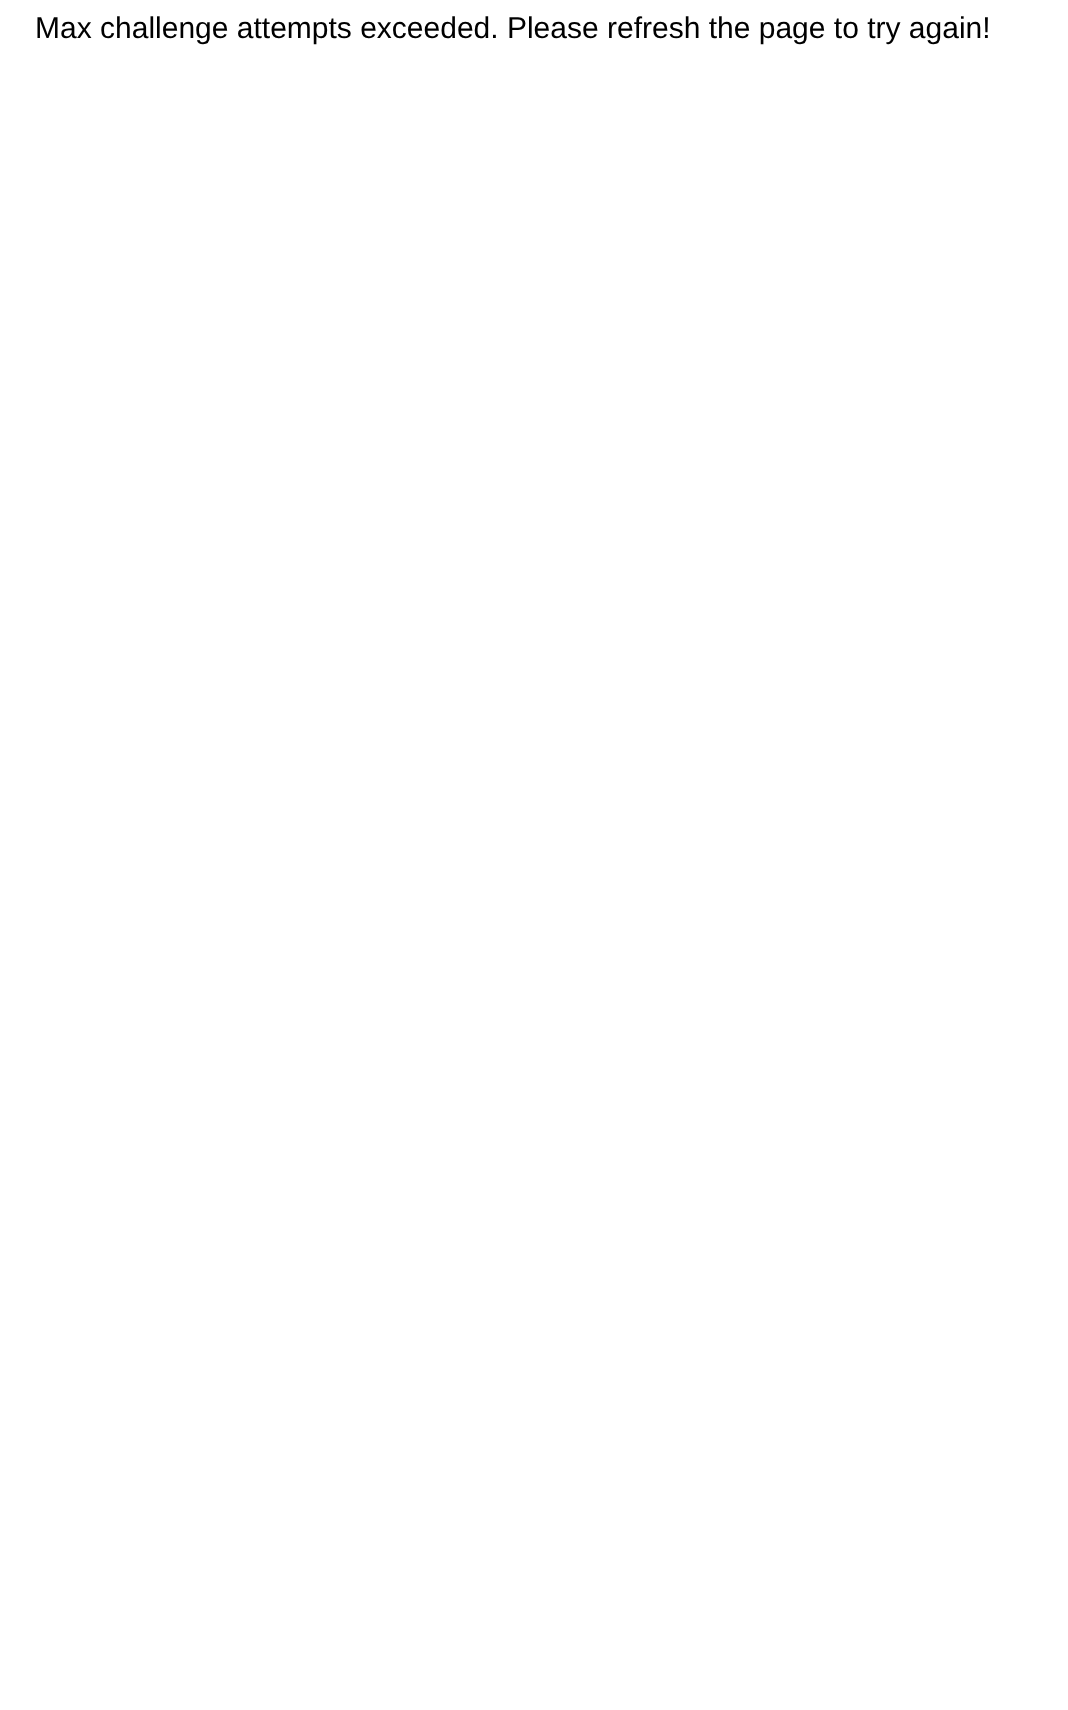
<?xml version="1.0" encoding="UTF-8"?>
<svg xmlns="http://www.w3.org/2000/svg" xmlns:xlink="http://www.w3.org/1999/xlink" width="1068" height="1710">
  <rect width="100%" height="100%" fill="#ffffff" />
  <text x="35" y="38" style="font-family: Liberation Sans; font-size: 30px; fill: #000000">Max challenge attempts exceeded. Please refresh the page to try again!</text>
</svg>
